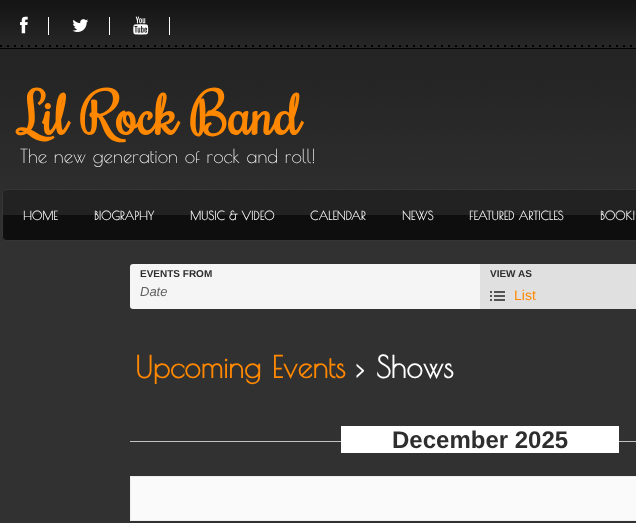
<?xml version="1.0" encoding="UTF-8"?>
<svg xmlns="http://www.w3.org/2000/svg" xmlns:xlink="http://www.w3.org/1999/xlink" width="636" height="523">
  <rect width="100%" height="100%" fill="#ffffff" />
  <image x="0" y="0" width="636" height="241" xlink:href="image1.png" />
  <rect x="48" y="17" width="1" height="18" fill="#ffffff" />
  <image x="20" y="16" width="8" height="18" xlink:href="image2.png" />
  <rect x="109" y="17" width="1" height="18" fill="#ffffff" />
  <image x="72" y="19" width="17" height="13" xlink:href="image3.png" />
  <rect x="169" y="17" width="1" height="18" fill="#ffffff" />
  <image x="133" y="16" width="16" height="19" xlink:href="image4.png" />
  <image x="2" y="190" width="634" height="50" xlink:href="image5.png" />
  <rect x="2.5" y="189.5" width="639" height="51" rx="4.5" fill="none" stroke="#373535" />
  <rect y="241" width="636" height="282" fill="#313131" />
  <rect x="130" y="264" width="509" height="45" rx="3" fill="#f5f5f5" />
  <rect x="480" y="264" width="156" height="45" fill="#e0e0e0" />
  <image x="490" y="291" width="15" height="10" xlink:href="image6.png" />
  <rect x="130" y="441" width="506" height="1" fill="#c2c2c2" />
  <rect x="341" y="426" width="278" height="27" fill="#ffffff" />
  <rect x="130.5" y="476.5" width="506" height="44" fill="#fafafa" stroke="#eeeeee" />
  <text x="20" y="135" style="font-family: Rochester; font-size: 56px; font-weight: bold; fill: #ff8800">Lil Rock Band</text>
  <text x="20" y="163" style="font-family: Poiret One; font-size: 19px; fill: #ffffff">The new generation of rock and roll!</text>
  <text x="23" y="220" style="font-family: Poiret One; font-size: 12px; font-weight: bold; fill: #ffffff">HOME</text>
  <text x="94" y="220" style="font-family: Poiret One; font-size: 12px; font-weight: bold; fill: #ffffff">BIOGRAPHY</text>
  <text x="190" y="220" style="font-family: Poiret One; font-size: 12px; font-weight: bold; fill: #ffffff">MUSIC &amp; VIDEO</text>
  <text x="310" y="220" style="font-family: Poiret One; font-size: 12px; font-weight: bold; fill: #ffffff">CALENDAR</text>
  <text x="402" y="220" style="font-family: Poiret One; font-size: 12px; font-weight: bold; fill: #ffffff">NEWS</text>
  <text x="469" y="220" style="font-family: Poiret One; font-size: 12px; font-weight: bold; fill: #ffffff">FEATURED ARTICLES</text>
  <text x="600" y="220" style="font-family: Poiret One; font-size: 12px; font-weight: bold; fill: #ffffff">BOOKI</text>
  <text x="140" y="277" style="font-family: Liberation Sans; font-size: 10px; font-weight: bold; fill: #2e2e2e">EVENTS FROM</text>
  <text x="140" y="296" style="font-family: Liberation Sans; font-size: 13px; font-style: italic; fill: #5f5f5f">Date</text>
  <text x="490" y="277" style="font-family: Liberation Sans; font-size: 10px; font-weight: bold; fill: #2e2e2e">VIEW AS</text>
  <text x="514" y="300" style="font-family: Liberation Sans; font-size: 14px; fill: #ff8800">List</text>
  <text x="135" y="378" style="font-family: Poiret One; font-size: 30px; font-weight: bold; fill: #ff8800">Upcoming Events</text>
  <text x="356" y="378" style="font-family: Poiret One; font-size: 30px; font-weight: bold; fill: #ffffff">› Shows</text>
  <text x="392" y="448" style="font-family: Liberation Sans; font-size: 24px; font-weight: bold; fill: #2e2e2e">December 2025</text>
</svg>
